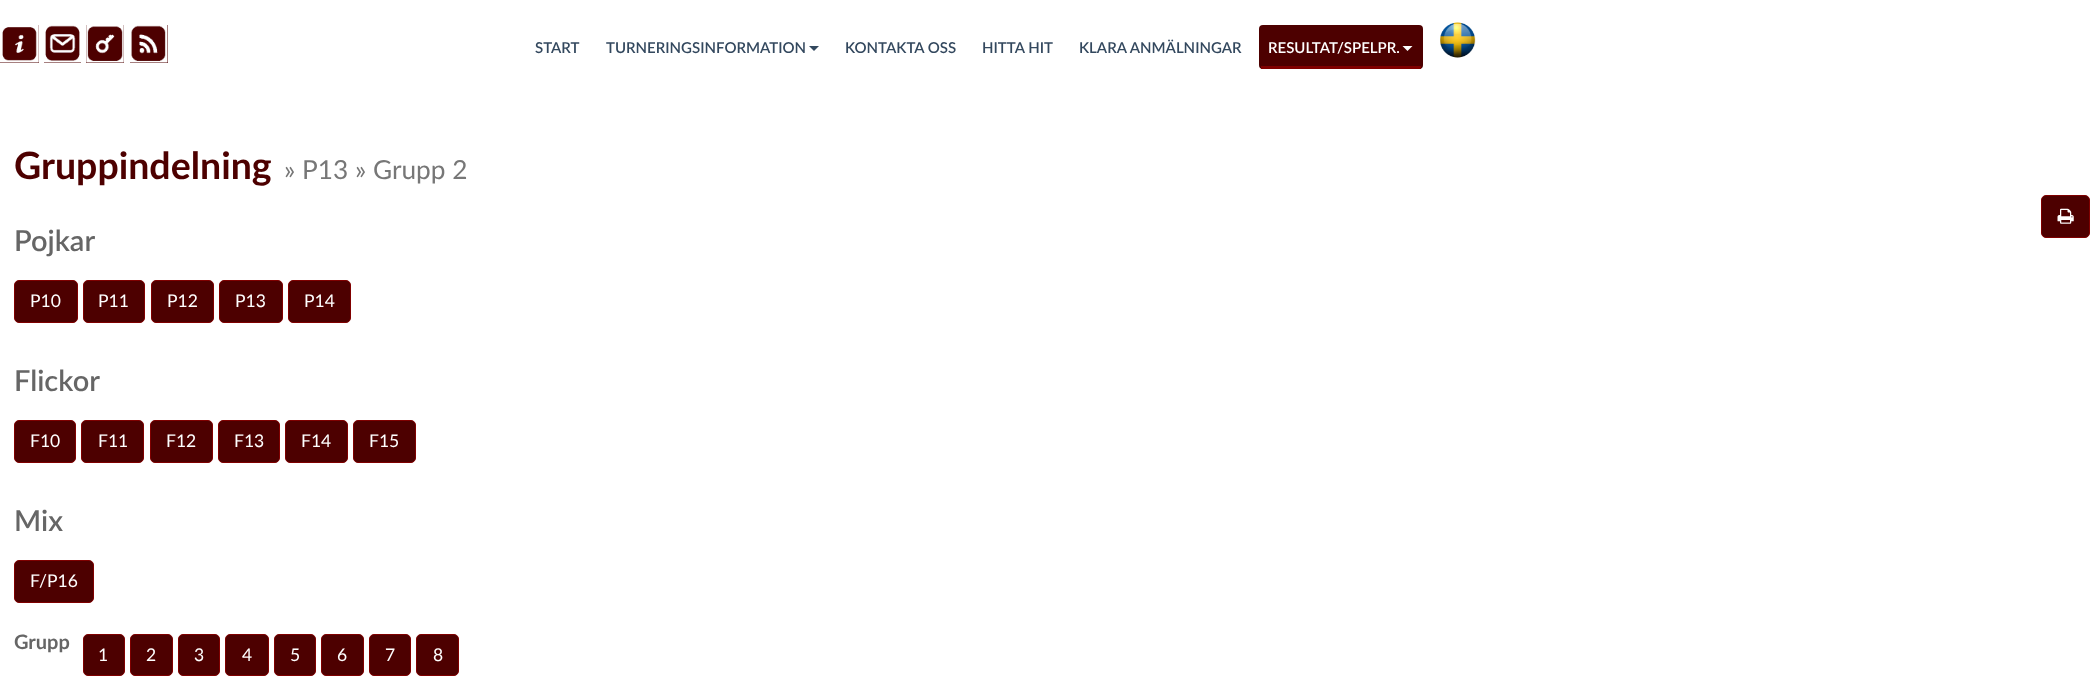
<?xml version="1.0" encoding="UTF-8"?>
<svg xmlns="http://www.w3.org/2000/svg" xmlns:xlink="http://www.w3.org/1999/xlink" width="2100" height="676">
  <rect width="100%" height="100%" fill="#ffffff" />
  <rect y="25" width="39" height="38" fill="#4d0000" />
  <image x="0" y="25" width="39" height="38" xlink:href="image1.png" />
  <rect x="44" y="25" width="37" height="38" fill="#4d0000" />
  <image x="44" y="25" width="37" height="38" xlink:href="image2.png" />
  <rect x="86" y="25" width="38" height="38" fill="#4d0000" />
  <image x="86" y="25" width="38" height="38" xlink:href="image3.png" />
  <rect x="130" y="25" width="38" height="38" fill="#4d0000" />
  <image x="130" y="25" width="38" height="38" xlink:href="image4.png" />
  <path d="M 809 46 h 10 l -5 5 z" fill="#33485e" />
  <rect x="1259" y="25" width="164" height="44" rx="4" fill="#4d0000" />
  <rect x="1261" y="66" width="160" height="3" fill="#800000" />
  <path d="M 1402.5 46 h 10 l -5 5 z" fill="#ffffff" />
  <image x="1440" y="22" width="36" height="36" xlink:href="image5.png" />
  <rect x="2041.5" y="195.5" width="48" height="42" rx="4.5" fill="#4d0000" stroke="#800000" />
  <image x="2057" y="208" width="17" height="16" xlink:href="image6.png" />
  <rect x="14.5" y="280.5" width="63" height="42" rx="4.5" fill="#4d0000" stroke="#800000" />
  <rect x="83.5" y="280.5" width="61" height="42" rx="4.5" fill="#4d0000" stroke="#800000" />
  <rect x="151.5" y="280.5" width="62" height="42" rx="4.5" fill="#4d0000" stroke="#800000" />
  <rect x="219.5" y="280.5" width="63" height="42" rx="4.5" fill="#4d0000" stroke="#800000" />
  <rect x="288.5" y="280.5" width="62" height="42" rx="4.5" fill="#4d0000" stroke="#800000" />
  <rect x="14.5" y="420.5" width="61" height="42" rx="4.5" fill="#4d0000" stroke="#800000" />
  <rect x="81.5" y="420.5" width="62" height="42" rx="4.5" fill="#4d0000" stroke="#800000" />
  <rect x="150.5" y="420.5" width="62" height="42" rx="4.5" fill="#4d0000" stroke="#800000" />
  <rect x="218.5" y="420.5" width="61" height="42" rx="4.5" fill="#4d0000" stroke="#800000" />
  <rect x="285.5" y="420.5" width="62" height="42" rx="4.5" fill="#4d0000" stroke="#800000" />
  <rect x="353.5" y="420.5" width="62" height="42" rx="4.5" fill="#4d0000" stroke="#800000" />
  <rect x="14.5" y="560.5" width="79" height="42" rx="4.5" fill="#4d0000" stroke="#800000" />
  <rect x="83.5" y="634.5" width="41" height="41" rx="4.5" fill="#4d0000" stroke="#800000" />
  <rect x="130.5" y="634.5" width="42" height="41" rx="4.5" fill="#4d0000" stroke="#800000" />
  <rect x="178.5" y="634.5" width="41" height="41" rx="4.5" fill="#4d0000" stroke="#800000" />
  <rect x="225.5" y="634.5" width="43" height="41" rx="4.5" fill="#4d0000" stroke="#800000" />
  <rect x="274.5" y="634.5" width="41" height="41" rx="4.5" fill="#4d0000" stroke="#800000" />
  <rect x="321.5" y="634.5" width="42" height="41" rx="4.5" fill="#4d0000" stroke="#800000" />
  <rect x="369.5" y="634.5" width="41" height="41" rx="4.5" fill="#4d0000" stroke="#800000" />
  <rect x="416.5" y="634.5" width="42" height="41" rx="4.5" fill="#4d0000" stroke="#800000" />
  <text x="535" y="53" style="font-family: Lato; font-size: 15px; font-weight: 600; fill: #33485e">START</text>
  <text x="606" y="53" style="font-family: Lato; font-size: 15px; font-weight: 600; fill: #33485e">TURNERINGSINFORMATION</text>
  <text x="845" y="53" style="font-family: Lato; font-size: 15px; font-weight: 600; fill: #33485e">KONTAKTA OSS</text>
  <text x="982" y="53" style="font-family: Lato; font-size: 15px; font-weight: 600; fill: #33485e">HITTA HIT</text>
  <text x="1079" y="53" style="font-family: Lato; font-size: 15px; font-weight: 600; fill: #33485e">KLARA ANMÄLNINGAR</text>
  <text x="1268" y="53" style="font-family: Lato; font-size: 15px; font-weight: 600; fill: #ffffff">RESULTAT/SPELPR.</text>
  <text x="14" y="179" style="font-family: Lato; font-size: 37.5px; font-weight: bold; fill: #4d0000">Gruppindelning</text>
  <text x="284" y="179" style="font-family: Lato; font-size: 26.25px; fill: #777777">» P13 » Grupp 2</text>
  <text x="14" y="251" style="font-family: Lato; font-size: 29px; font-weight: 600; fill: #666666">Pojkar</text>
  <text x="30" y="307" style="font-family: Lato; font-size: 17.5px; fill: #ffffff">P10</text>
  <text x="98" y="307" style="font-family: Lato; font-size: 17.5px; fill: #ffffff">P11</text>
  <text x="167" y="307" style="font-family: Lato; font-size: 17.5px; fill: #ffffff">P12</text>
  <text x="235" y="307" style="font-family: Lato; font-size: 17.5px; fill: #ffffff">P13</text>
  <text x="304" y="307" style="font-family: Lato; font-size: 17.5px; fill: #ffffff">P14</text>
  <text x="14" y="391" style="font-family: Lato; font-size: 29px; font-weight: 600; fill: #666666">Flickor</text>
  <text x="30" y="447" style="font-family: Lato; font-size: 17.5px; fill: #ffffff">F10</text>
  <text x="98" y="447" style="font-family: Lato; font-size: 17.5px; fill: #ffffff">F11</text>
  <text x="166" y="447" style="font-family: Lato; font-size: 17.5px; fill: #ffffff">F12</text>
  <text x="234" y="447" style="font-family: Lato; font-size: 17.5px; fill: #ffffff">F13</text>
  <text x="301" y="447" style="font-family: Lato; font-size: 17.5px; fill: #ffffff">F14</text>
  <text x="369" y="447" style="font-family: Lato; font-size: 17.5px; fill: #ffffff">F15</text>
  <text x="14" y="531" style="font-family: Lato; font-size: 29px; font-weight: 600; fill: #666666">Mix</text>
  <text x="30" y="587" style="font-family: Lato; font-size: 17.5px; fill: #ffffff">F/P16</text>
  <text x="14" y="649" style="font-family: Lato; font-size: 20px; font-weight: bold; fill: #666666">Grupp</text>
  <text x="98" y="661" style="font-family: Lato; font-size: 17.5px; fill: #ffffff">1</text>
  <text x="146" y="661" style="font-family: Lato; font-size: 17.5px; fill: #ffffff">2</text>
  <text x="194" y="661" style="font-family: Lato; font-size: 17.5px; fill: #ffffff">3</text>
  <text x="242" y="661" style="font-family: Lato; font-size: 17.5px; fill: #ffffff">4</text>
  <text x="290" y="661" style="font-family: Lato; font-size: 17.5px; fill: #ffffff">5</text>
  <text x="337" y="661" style="font-family: Lato; font-size: 17.5px; fill: #ffffff">6</text>
  <text x="385" y="661" style="font-family: Lato; font-size: 17.5px; fill: #ffffff">7</text>
  <text x="433" y="661" style="font-family: Lato; font-size: 17.5px; fill: #ffffff">8</text>
</svg>
